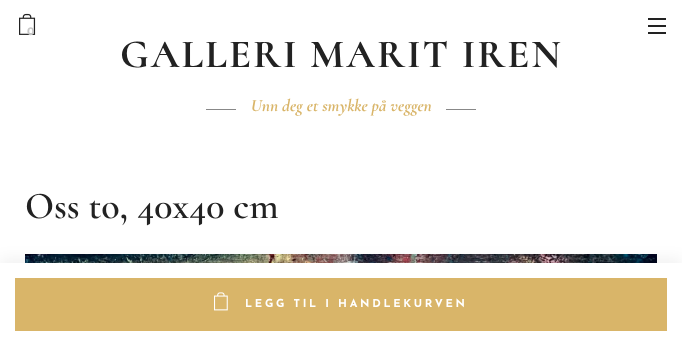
<?xml version="1.0" encoding="UTF-8"?>
<svg xmlns="http://www.w3.org/2000/svg" xmlns:xlink="http://www.w3.org/1999/xlink" width="682" height="346">
  <rect width="100%" height="100%" fill="#ffffff" />
  <image x="19" y="13" width="17" height="22" xlink:href="image1.png" />
  <rect x="648" y="25" width="18" height="2" fill="#222222" />
  <rect x="648" y="18" width="18" height="2" fill="#222222" />
  <rect x="648" y="32" width="18" height="2" fill="#222222" />
  <rect x="206" y="109" width="30" height="1" fill="#888888" />
  <rect x="446" y="109" width="30" height="1" fill="#888888" />
  <image x="25" y="254" width="632" height="9" xlink:href="image2.png" />
  <rect y="259" width="682" height="83" fill="#000000" fill-opacity="0.06" filter="blur(7.5px)" />
  <rect y="263" width="682" height="83" fill="#ffffff" />
  <rect x="15" y="278" width="652" height="53" fill="#d9b569" />
  <image x="214" y="292" width="14" height="19" xlink:href="image3.png" />
  <text x="27" y="35" style="font-family: Montserrat; font-size: 11px; font-weight: bold; fill: #c8c8c8">0</text>
  <text x="120" y="67" style="font-family: Cormorant; font-size: 40px; font-weight: bold; letter-spacing: 2px; fill: #222222">GALLERI MARIT IREN</text>
  <text x="251" y="111" style="font-family: Cormorant; font-size: 17.25px; font-weight: bold; font-style: italic; fill: #d9b569">Unn deg et smykke på veggen</text>
  <text x="25" y="218" style="font-family: Cormorant; font-size: 38px; font-weight: 600; fill: #222222">Oss to, 40x40 cm</text>
  <text x="245" y="307" style="font-family: Josefin Sans; font-size: 11px; font-weight: bold; letter-spacing: 2.75px; fill: #ffffff">LEGG TIL I HANDLEKURVEN</text>
</svg>
